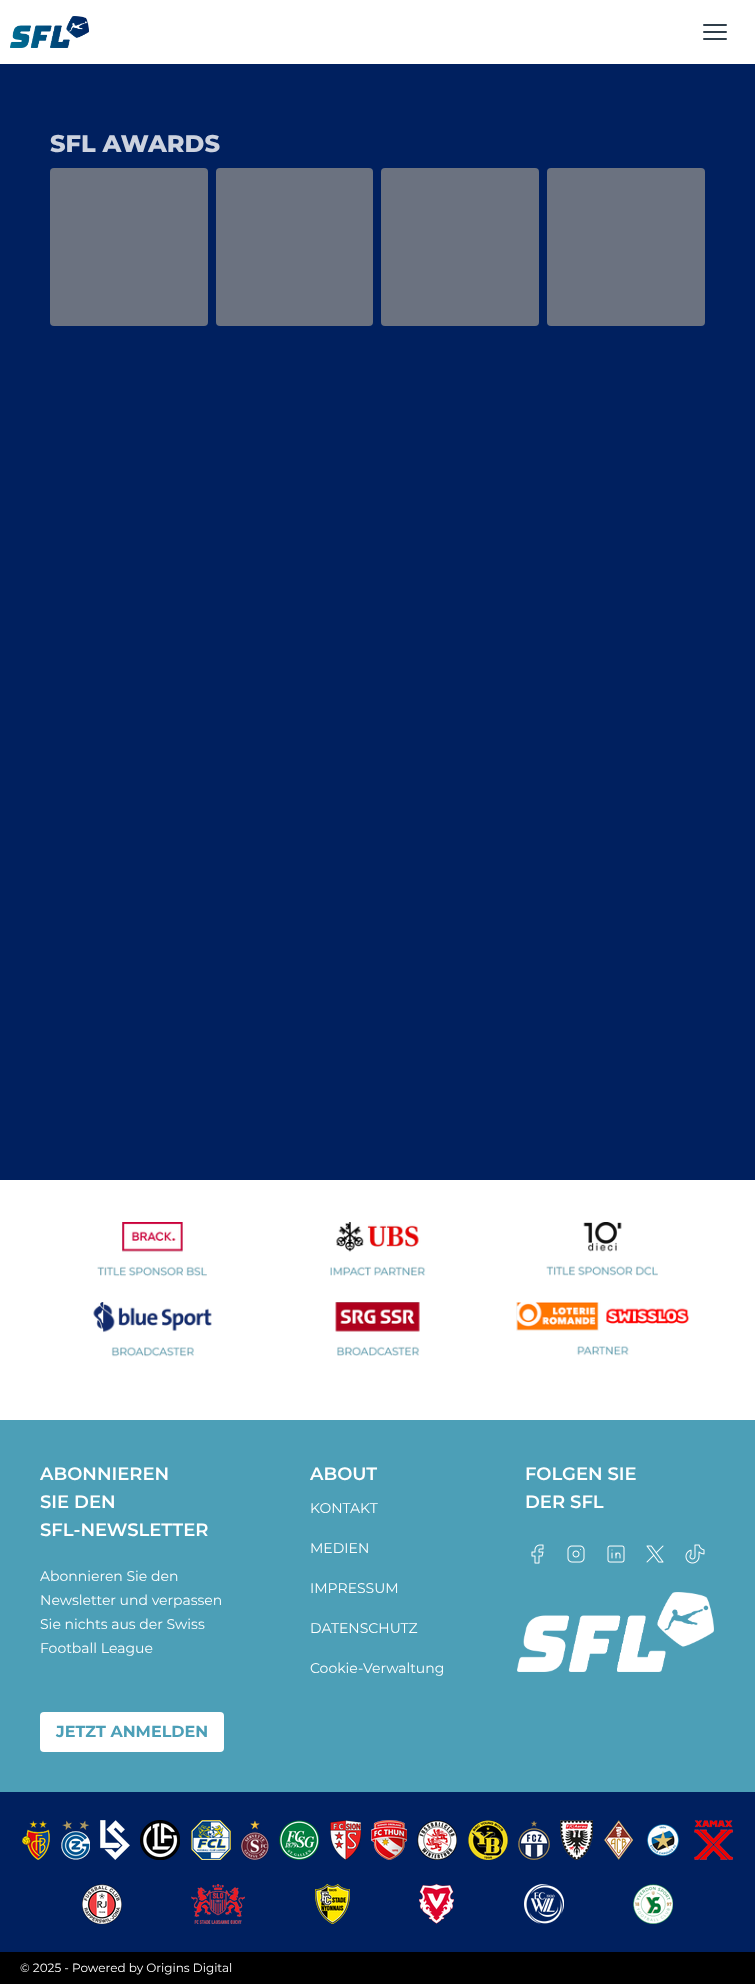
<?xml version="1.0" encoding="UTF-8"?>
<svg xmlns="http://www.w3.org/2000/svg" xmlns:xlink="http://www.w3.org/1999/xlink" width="755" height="1984">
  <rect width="100%" height="100%" fill="#00205f" />
  <rect width="755" height="64" fill="#ffffff" />
  <image x="10" y="16" width="79" height="32" xlink:href="image1.png" />
  <path d="M 704 25 h 22 m -22 7 h 22 m -22 7 h 22" fill="none" stroke="#2f3e4a" stroke-width="2" stroke-linecap="round" stroke-linejoin="round" />
  <rect x="50" y="168" width="158" height="158" rx="4" fill="#6b7280" />
  <rect x="216" y="168" width="157" height="158" rx="4" fill="#6b7280" />
  <rect x="381" y="168" width="158" height="158" rx="4" fill="#6b7280" />
  <rect x="547" y="168" width="158" height="158" rx="4" fill="#6b7280" />
  <rect y="1180" width="755" height="240" fill="#ffffff" />
  <image x="97" y="1222" width="110" height="55" xlink:href="image2.png" />
  <image x="330" y="1222" width="96" height="54" xlink:href="image3.png" />
  <image x="546" y="1222" width="112" height="54" xlink:href="image4.png" />
  <image x="93" y="1302" width="119" height="55" xlink:href="image5.png" />
  <image x="335" y="1302" width="85" height="54" xlink:href="image6.png" />
  <image x="516" y="1302" width="174" height="54" xlink:href="image7.png" />
  <rect y="1420" width="755" height="372" fill="#4c9fb7" />
  <rect x="40" y="1712" width="184" height="40" rx="4" fill="#ffffff" />
  <image x="531" y="1544" width="13" height="20" xlink:href="image8.png" />
  <image x="567" y="1545" width="18" height="18" xlink:href="image9.png" />
  <image x="607" y="1545" width="18" height="18" xlink:href="image10.png" />
  <image x="646" y="1545" width="18" height="18" xlink:href="image11.png" />
  <image x="685" y="1544" width="20" height="20" xlink:href="image12.png" />
  <image x="517" y="1592" width="197" height="80" xlink:href="image13.png" />
  <image x="22" y="1820" width="28" height="40" xlink:href="image14.png" />
  <image x="61" y="1820" width="29" height="40" xlink:href="image15.png" />
  <image x="100" y="1820" width="30" height="40" xlink:href="image16.png" />
  <image x="140" y="1820" width="40" height="40" xlink:href="image17.png" />
  <image x="191" y="1820" width="40" height="40" xlink:href="image18.png" />
  <image x="241" y="1820" width="28" height="40" xlink:href="image19.png" />
  <image x="279" y="1820" width="40" height="40" xlink:href="image20.png" />
  <image x="330" y="1820" width="31" height="40" xlink:href="image21.png" />
  <image x="371" y="1820" width="36" height="40" xlink:href="image22.png" />
  <image x="417" y="1820" width="40" height="40" xlink:href="image23.png" />
  <image x="468" y="1820" width="40" height="40" xlink:href="image24.png" />
  <image x="518" y="1820" width="32" height="40" xlink:href="image25.png" />
  <image x="560" y="1820" width="33" height="40" xlink:href="image26.png" />
  <image x="604" y="1820" width="29" height="40" xlink:href="image27.png" />
  <image x="646" y="1823" width="34" height="34" xlink:href="image28.png" />
  <image x="694" y="1820" width="39" height="40" xlink:href="image29.png" />
  <image x="82" y="1884" width="40" height="40" xlink:href="image30.png" />
  <image x="191" y="1884" width="54" height="40" xlink:href="image31.png" />
  <image x="315" y="1884" width="35" height="40" xlink:href="image32.png" />
  <image x="419" y="1884" width="35" height="40" xlink:href="image33.png" />
  <image x="524" y="1884" width="40" height="40" xlink:href="image34.png" />
  <image x="633" y="1884" width="40" height="40" xlink:href="image35.png" />
  <rect y="1952" width="755" height="32" fill="#000000" />
  <text x="50" y="152" style="font-family: Montserrat; font-size: 24px; font-weight: 800; fill: #ccd2df">SFL AWARDS</text>
  <text x="40" y="1480" style="font-family: Montserrat; font-size: 18px; font-weight: 600; fill: #ffffff">ABONNIEREN</text>
  <text x="40" y="1508" style="font-family: Montserrat; font-size: 18px; font-weight: 600; fill: #ffffff">SIE DEN</text>
  <text x="40" y="1536" style="font-family: Montserrat; font-size: 18px; font-weight: 600; fill: #ffffff">SFL-NEWSLETTER</text>
  <text x="40" y="1581" style="font-family: Montserrat; font-size: 14px; fill: #ffffff">Abonnieren Sie den</text>
  <text x="40" y="1605" style="font-family: Montserrat; font-size: 14px; fill: #ffffff">Newsletter und verpassen</text>
  <text x="40" y="1629" style="font-family: Montserrat; font-size: 14px; fill: #ffffff">Sie nichts aus der Swiss</text>
  <text x="40" y="1653" style="font-family: Montserrat; font-size: 14px; fill: #ffffff">Football League</text>
  <text x="56" y="1737" style="font-family: Montserrat; font-size: 16px; font-weight: bold; fill: #4c9fb7">JETZT ANMELDEN</text>
  <text x="310" y="1480" style="font-family: Montserrat; font-size: 18px; font-weight: 600; fill: #ffffff">ABOUT</text>
  <text x="310" y="1513" style="font-family: Montserrat; font-size: 14px; fill: #ffffff">KONTAKT</text>
  <text x="310" y="1553" style="font-family: Montserrat; font-size: 14px; fill: #ffffff">MEDIEN</text>
  <text x="310" y="1593" style="font-family: Montserrat; font-size: 14px; fill: #ffffff">IMPRESSUM</text>
  <text x="310" y="1633" style="font-family: Montserrat; font-size: 14px; fill: #ffffff">DATENSCHUTZ</text>
  <text x="310" y="1673" style="font-family: Montserrat; font-size: 14px; fill: #ffffff">Cookie-Verwaltung</text>
  <text x="525" y="1480" style="font-family: Montserrat; font-size: 18px; font-weight: 600; fill: #ffffff">FOLGEN SIE</text>
  <text x="525" y="1508" style="font-family: Montserrat; font-size: 18px; font-weight: 600; fill: #ffffff">DER SFL</text>
  <text x="20" y="1972" style="font-family: Montserrat; font-size: 12px; fill: #ffffff">© 2025 - Powered by Origins Digital</text>
</svg>
